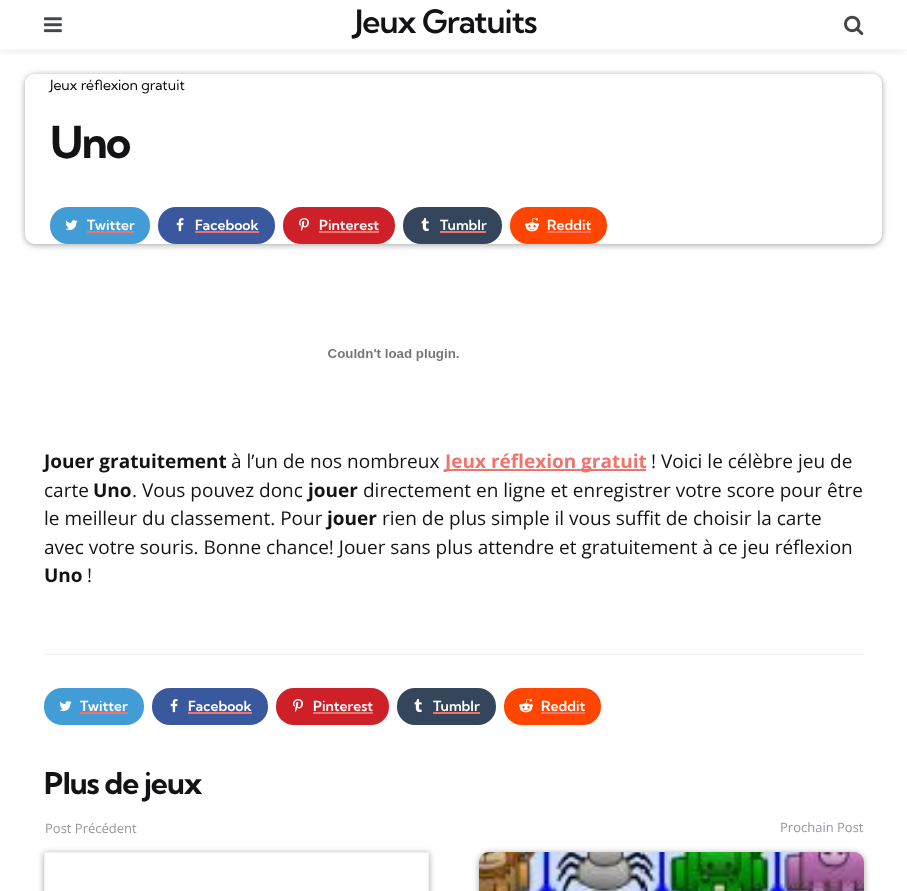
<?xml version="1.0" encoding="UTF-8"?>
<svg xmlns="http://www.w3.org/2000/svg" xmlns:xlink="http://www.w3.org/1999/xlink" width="907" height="891">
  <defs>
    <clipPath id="clip1"><rect x="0" y="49" width="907" height="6" /></clipPath>
    <clipPath id="clip2"><path d="M 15 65 h 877 v 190 h -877 z m 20 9 h 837 c 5.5 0 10 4.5 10 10 v 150 c 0 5.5 -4.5 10 -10 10 h -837 c -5.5 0 -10 -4.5 -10 -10 v -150 c 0 -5.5 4.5 -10 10 -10 z" clip-rule="evenodd" /></clipPath>
    <clipPath id="clip3"><path d="M 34 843 h 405 v 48 h -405 z m 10 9 h 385 v 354 h -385 z" clip-rule="evenodd" /></clipPath>
  </defs>
  <rect width="100%" height="100%" fill="#ffffff" />
  <g clip-path="url(#clip1)">
    <rect width="907" height="49" fill="#000000" fill-opacity="0.1" filter="blur(7.5px)" />
  </g>
  <image x="44" y="17" width="18" height="16" xlink:href="image1.png" />
  <image x="844" y="15" width="20" height="21" xlink:href="image2.png" />
  <g clip-path="url(#clip2)">
    <rect x="25" y="75" width="857" height="170" rx="10" fill="#323232" fill-opacity="0.45" filter="blur(3px)" />
  </g>
  <rect x="50" y="207" width="100" height="37" rx="18" fill="#429cd6" />
  <image x="65" y="220" width="13" height="11" xlink:href="image3.png" />
  <rect x="87" y="231" width="47" height="2" fill="#f3726c" />
  <rect x="158" y="207" width="117" height="37" rx="18" fill="#3a589e" />
  <image x="176" y="218" width="8" height="14" xlink:href="image4.png" />
  <rect x="195" y="231" width="64" height="2" fill="#f3726c" />
  <rect x="283" y="207" width="112" height="37" rx="18" fill="#cd2029" />
  <image x="299" y="218" width="10" height="13" xlink:href="image5.png" />
  <rect x="319" y="231" width="60" height="2" fill="#f3726c" />
  <rect x="403" y="207" width="99" height="37" rx="18" fill="#35465c" />
  <image x="421" y="218" width="8" height="14" xlink:href="image6.png" />
  <rect x="440" y="231" width="46" height="2" fill="#f3726c" />
  <rect x="510" y="207" width="97" height="37" rx="18" fill="#ff4500" />
  <image x="525" y="218" width="14" height="14" xlink:href="image7.png" />
  <rect x="547" y="231" width="44" height="2" fill="#f3726c" />
  <image x="328" y="349" width="131" height="12" xlink:href="image8.png" />
  <rect x="445" y="469" width="201" height="2" fill="#f3726c" />
  <rect x="44" y="654" width="820" height="1" fill="#f2f2f3" />
  <rect x="44" y="688" width="100" height="37" rx="18" fill="#429cd6" />
  <image x="59" y="701" width="13" height="11" xlink:href="image3.png" />
  <rect x="80" y="712" width="48" height="2" fill="#f3726c" />
  <rect x="152" y="688" width="116" height="37" rx="18" fill="#3a589e" />
  <image x="170" y="699" width="8" height="14" xlink:href="image4.png" />
  <rect x="188" y="712" width="64" height="2" fill="#f3726c" />
  <rect x="276" y="688" width="113" height="37" rx="18" fill="#cd2029" />
  <image x="293" y="699" width="10" height="13" xlink:href="image5.png" />
  <rect x="313" y="712" width="60" height="2" fill="#f3726c" />
  <rect x="397" y="688" width="99" height="37" rx="18" fill="#35465c" />
  <image x="414" y="699" width="8" height="14" xlink:href="image6.png" />
  <rect x="433" y="712" width="47" height="2" fill="#f3726c" />
  <rect x="504" y="688" width="97" height="37" rx="18" fill="#ff4500" />
  <image x="519" y="699" width="14" height="14" xlink:href="image7.png" />
  <rect x="541" y="712" width="44" height="2" fill="#f3726c" />
  <g clip-path="url(#clip3)">
    <rect x="44" y="853" width="385" height="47" fill="#323232" fill-opacity="0.45" filter="blur(3px)" />
  </g>
  <rect x="44.5" y="852.5" width="384" height="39" fill="none" stroke="#f2f2f3" />
  <rect x="479" y="853" width="385" height="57" rx="10" fill="#323232" fill-opacity="0.45" filter="blur(3px)" />
  <image x="479" y="852" width="385" height="39" xlink:href="image9.png" />
  <text x="355" y="33" style="font-family: Kumbh Sans; font-size: 32px; font-weight: 600; letter-spacing: -1px; fill: #131315">Jeux Gratuits</text>
  <text x="50" y="90" style="font-family: Kumbh Sans; font-size: 14px; fill: #000000">Jeux réflexion gratuit</text>
  <text x="50" y="158" style="font-family: Kumbh Sans; font-size: 44px; font-weight: bold; letter-spacing: -2px; fill: #131315">Uno</text>
  <text x="87" y="230" style="font-family: Kumbh Sans; font-size: 14px; font-weight: 600; fill: #ffffff">Twitter</text>
  <text x="195" y="230" style="font-family: Kumbh Sans; font-size: 14px; font-weight: 600; fill: #ffffff">Facebook</text>
  <text x="319" y="230" style="font-family: Kumbh Sans; font-size: 14px; font-weight: 600; fill: #ffffff">Pinterest</text>
  <text x="440" y="230" style="font-family: Kumbh Sans; font-size: 14px; font-weight: 600; fill: #ffffff">Tumblr</text>
  <text x="547" y="230" style="font-family: Kumbh Sans; font-size: 14px; font-weight: 600; fill: #ffffff">Reddit</text>
  <text x="44" y="468" style="font-family: Open Sans; font-size: 19px; font-weight: bold; fill: #131315">Jouer gratuitement</text>
  <text x="231" y="468" style="font-family: Open Sans; font-size: 19px; fill: #131315">à l’un de nos nombreux</text>
  <text x="445" y="468" style="font-family: Open Sans; font-size: 19px; font-weight: bold; fill: #f3726c">Jeux réflexion gratuit</text>
  <text x="651" y="468" style="font-family: Open Sans; font-size: 19px; fill: #131315">! Voici le célèbre jeu de</text>
  <text x="44" y="497" style="font-family: Open Sans; font-size: 19px; fill: #131315">carte</text>
  <text x="93" y="497" style="font-family: Open Sans; font-size: 19px; font-weight: bold; fill: #131315">Uno</text>
  <text x="132" y="497" style="font-family: Open Sans; font-size: 19px; fill: #131315">. Vous pouvez donc</text>
  <text x="308" y="497" style="font-family: Open Sans; font-size: 19px; font-weight: bold; fill: #131315">jouer</text>
  <text x="363" y="497" style="font-family: Open Sans; font-size: 19px; fill: #131315">directement en ligne et enregistrer votre score pour être</text>
  <text x="44" y="525" style="font-family: Open Sans; font-size: 19px; fill: #131315">le meilleur du classement. Pour</text>
  <text x="327" y="525" style="font-family: Open Sans; font-size: 19px; font-weight: bold; fill: #131315">jouer</text>
  <text x="382" y="525" style="font-family: Open Sans; font-size: 19px; fill: #131315">rien de plus simple il vous suffit de choisir la carte</text>
  <text x="44" y="554" style="font-family: Open Sans; font-size: 19px; fill: #131315">avec votre souris. Bonne chance! Jouer sans plus attendre et gratuitement à ce jeu réflexion</text>
  <text x="44" y="582" style="font-family: Open Sans; font-size: 19px; font-weight: bold; fill: #131315">Uno</text>
  <text x="87" y="582" style="font-family: Open Sans; font-size: 19px; fill: #131315">!</text>
  <text x="80" y="711" style="font-family: Kumbh Sans; font-size: 14px; font-weight: 600; fill: #ffffff">Twitter</text>
  <text x="188" y="711" style="font-family: Kumbh Sans; font-size: 14px; font-weight: 600; fill: #ffffff">Facebook</text>
  <text x="313" y="711" style="font-family: Kumbh Sans; font-size: 14px; font-weight: 600; fill: #ffffff">Pinterest</text>
  <text x="433" y="711" style="font-family: Kumbh Sans; font-size: 14px; font-weight: 600; fill: #ffffff">Tumblr</text>
  <text x="541" y="711" style="font-family: Kumbh Sans; font-size: 14px; font-weight: 600; fill: #ffffff">Reddit</text>
  <text x="44" y="794" style="font-family: Kumbh Sans; font-size: 30px; font-weight: bold; letter-spacing: -1px; fill: #131315">Plus de jeux</text>
  <text x="45" y="833" style="font-family: Open Sans; font-size: 13px; fill: #94979e">Post Précédent</text>
  <text x="780" y="832" style="font-family: Open Sans; font-size: 13px; fill: #94979e">Prochain Post</text>
</svg>
